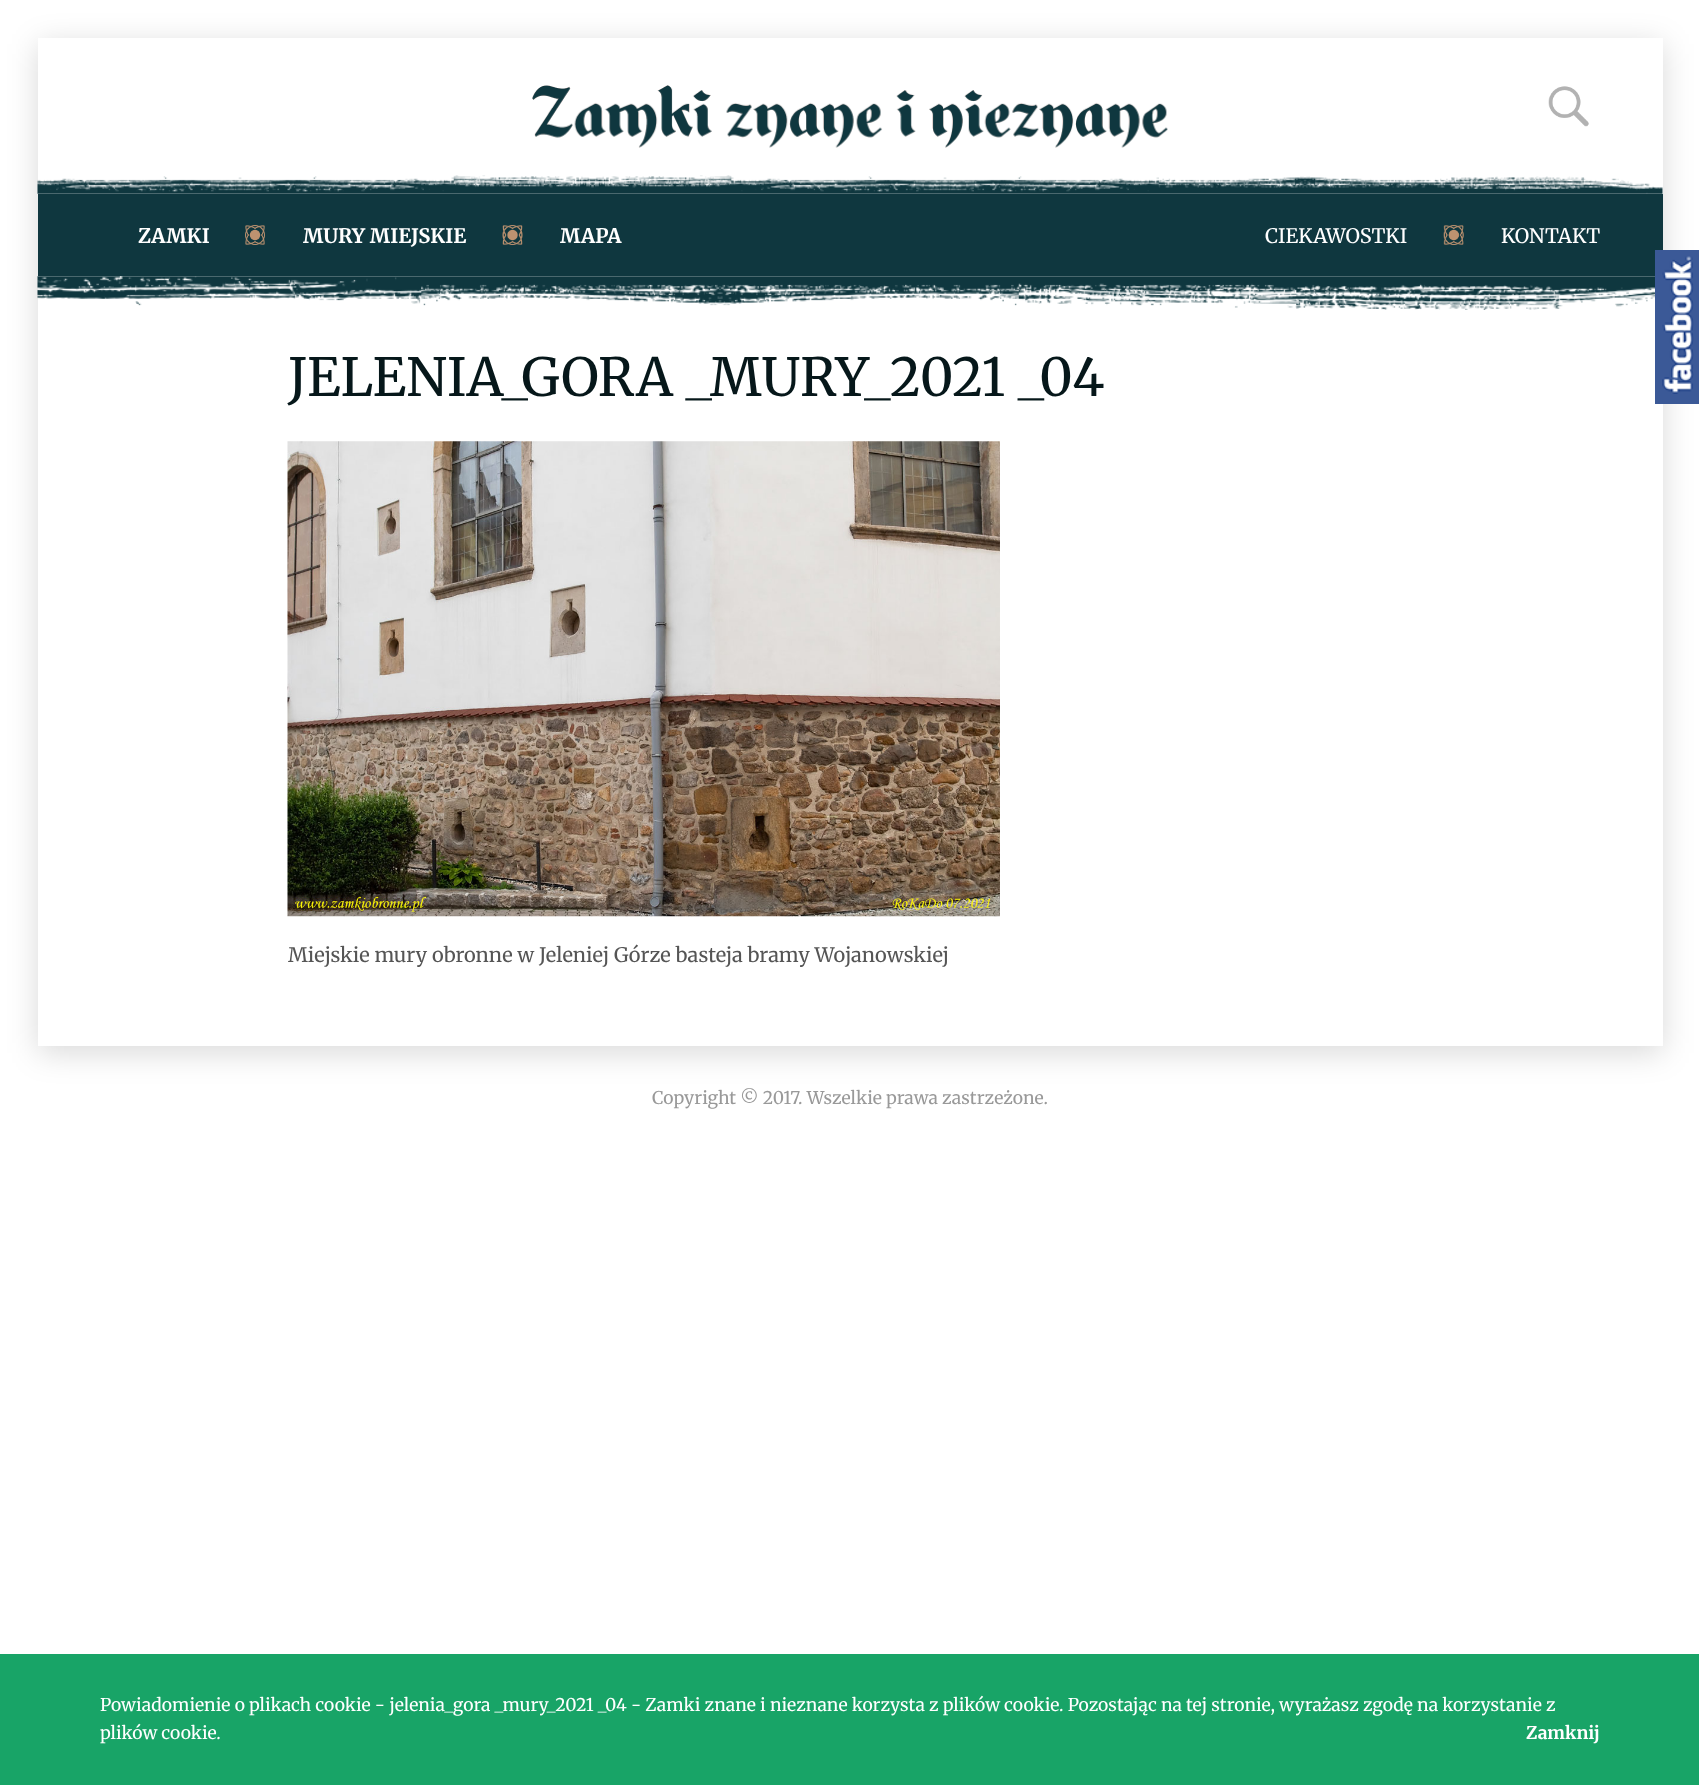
<?xml version="1.0" encoding="UTF-8"?>
<svg xmlns="http://www.w3.org/2000/svg" xmlns:xlink="http://www.w3.org/1999/xlink" width="1699" height="1785">
  <rect width="100%" height="100%" fill="#ffffff" />
  <rect x="38" y="44" width="1625" height="1009" fill="#000000" fill-opacity="0.15" filter="blur(15.5px)" />
  <rect x="38" y="38" width="1625" height="1008" fill="#ffffff" />
  <image x="532" y="85" width="636" height="63" xlink:href="image1.png" />
  <image x="1548" y="86" width="41" height="41" xlink:href="image2.png" />
  <rect x="38" y="194" width="1625" height="82" fill="#0f373f" />
  <image x="37" y="175" width="1626" height="19" xlink:href="image3.png" />
  <image x="245" y="225" width="20" height="20" xlink:href="image4.png" />
  <image x="502" y="225" width="21" height="20" xlink:href="image5.png" />
  <image x="1443" y="225" width="21" height="20" xlink:href="image6.png" />
  <image x="37" y="276" width="1618" height="34" xlink:href="image7.png" />
  <image x="287" y="441" width="713" height="476" xlink:href="image8.png" />
  <image x="1655" y="250" width="44" height="154" xlink:href="image9.png" />
  <rect y="1654" width="1699" height="131" fill="#18a467" />
  <text x="138" y="243" style="font-family: Merriweather; font-size: 20px; font-weight: bold; fill: #ffffff">ZAMKI</text>
  <text x="303" y="243" style="font-family: Merriweather; font-size: 20px; font-weight: bold; fill: #ffffff">MURY MIEJSKIE</text>
  <text x="560" y="243" style="font-family: Merriweather; font-size: 20px; font-weight: bold; fill: #ffffff">MAPA</text>
  <text x="1265" y="243" style="font-family: Merriweather; font-size: 20px; fill: #ffffff">CIEKAWOSTKI</text>
  <text x="1501" y="243" style="font-family: Merriweather; font-size: 20px; fill: #ffffff">KONTAKT</text>
  <text x="288" y="396" style="font-family: Merriweather; font-size: 52.5px; fill: #06171a">JELENIA_GORA _MURY_2021 _04</text>
  <text x="288" y="962" style="font-family: Merriweather; font-size: 20px; fill: #555555">Miejskie mury obronne w Jeleniej Górze basteja bramy Wojanowskiej</text>
  <text x="652" y="1104" style="font-family: Merriweather; font-size: 17.5px; fill: #999999">Copyright © 2017. Wszelkie prawa zastrzeżone.</text>
  <text x="100" y="1711" style="font-family: Merriweather; font-size: 17.5px; fill: #ffffff">Powiadomienie o plikach cookie - jelenia_gora _mury_2021 _04 - Zamki znane i nieznane korzysta z plików cookie. Pozostając na tej stronie, wyrażasz zgodę na korzystanie z</text>
  <text x="100" y="1739" style="font-family: Merriweather; font-size: 17.5px; fill: #ffffff">plików cookie.</text>
  <text x="1526" y="1739" style="font-family: Merriweather; font-size: 17.5px; font-weight: bold; fill: #ffffff">Zamknij</text>
</svg>
